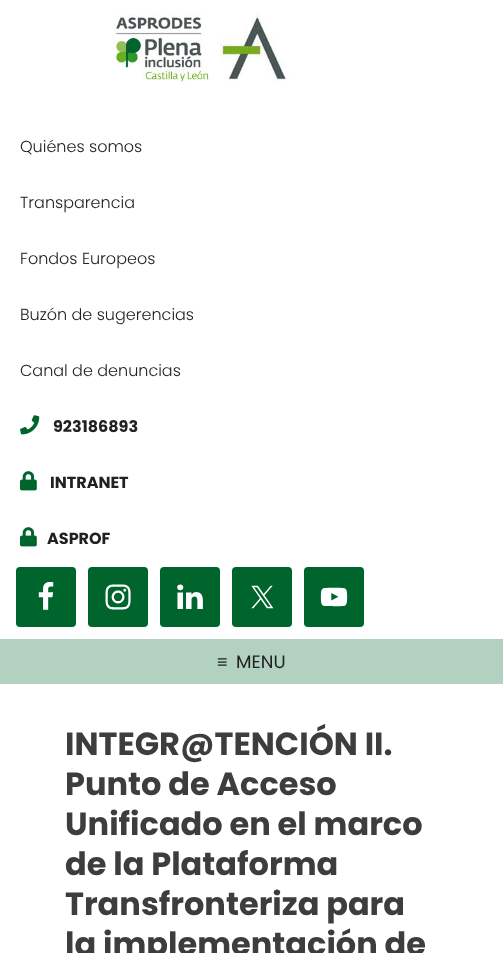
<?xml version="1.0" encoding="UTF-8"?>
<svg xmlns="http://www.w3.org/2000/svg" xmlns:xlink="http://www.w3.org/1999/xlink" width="503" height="953">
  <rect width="100%" height="100%" fill="#ffffff" />
  <image x="113" y="13" width="176" height="71" xlink:href="image1.png" />
  <image x="20" y="415" width="20" height="20" xlink:href="image2.png" />
  <image x="20" y="471" width="17" height="20" xlink:href="image3.png" />
  <image x="20" y="527" width="17" height="20" xlink:href="image3.png" />
  <rect x="16" y="567" width="60" height="60" rx="4" fill="#00642d" />
  <image x="38" y="582" width="16" height="28" xlink:href="image4.png" />
  <rect x="88" y="567" width="60" height="60" rx="4" fill="#00642d" />
  <image x="105" y="584" width="26" height="26" xlink:href="image5.png" />
  <rect x="160" y="567" width="60" height="60" rx="4" fill="#00642d" />
  <image x="177" y="584" width="26" height="25" xlink:href="image6.png" />
  <rect x="232" y="567" width="60" height="60" rx="4" fill="#00642d" />
  <image x="251" y="585" width="23" height="24" xlink:href="image7.png" />
  <rect x="304" y="567" width="60" height="60" rx="4" fill="#00642d" />
  <image x="320" y="587" width="28" height="20" xlink:href="image8.png" />
  <rect y="639" width="503" height="45" fill="#b3d1c0" />
  <text x="20" y="152" style="font-family: Poppins; font-size: 16px; font-weight: 300; fill: #212121">Quiénes somos</text>
  <text x="20" y="208" style="font-family: Poppins; font-size: 16px; font-weight: 300; fill: #212121">Transparencia</text>
  <text x="20" y="264" style="font-family: Poppins; font-size: 16px; font-weight: 300; fill: #212121">Fondos Europeos</text>
  <text x="20" y="320" style="font-family: Poppins; font-size: 16px; font-weight: 300; fill: #212121">Buzón de sugerencias</text>
  <text x="20" y="376" style="font-family: Poppins; font-size: 16px; font-weight: 300; fill: #212121">Canal de denuncias</text>
  <text x="53" y="432" style="font-family: Poppins; font-size: 16px; font-weight: bold; fill: #212121">923186893</text>
  <text x="50" y="488" style="font-family: Poppins; font-size: 16px; font-weight: bold; fill: #212121">INTRANET</text>
  <text x="47" y="544" style="font-family: Poppins; font-size: 16px; font-weight: bold; fill: #212121">ASPROF</text>
  <text x="217" y="668" style="font-family: Liberation Sans; font-size: 18px; fill: #212121">≡</text>
  <text x="236" y="668" style="font-family: Poppins; font-size: 18px; fill: #212121">MENU</text>
  <text x="65" y="755" style="font-family: Poppins; font-size: 32px; font-weight: bold; fill: #3d3d3d">INTEGR@TENCIÓN II.</text>
  <text x="65" y="795" style="font-family: Poppins; font-size: 32px; font-weight: bold; fill: #3d3d3d">Punto de Acceso</text>
  <text x="65" y="835" style="font-family: Poppins; font-size: 32px; font-weight: bold; fill: #3d3d3d">Unificado en el marco</text>
  <text x="65" y="875" style="font-family: Poppins; font-size: 32px; font-weight: bold; fill: #3d3d3d">de la Plataforma</text>
  <text x="65" y="915" style="font-family: Poppins; font-size: 32px; font-weight: bold; fill: #3d3d3d">Transfronteriza para</text>
  <text x="65" y="955" style="font-family: Poppins; font-size: 32px; font-weight: bold; fill: #3d3d3d">la implementación de</text>
</svg>
